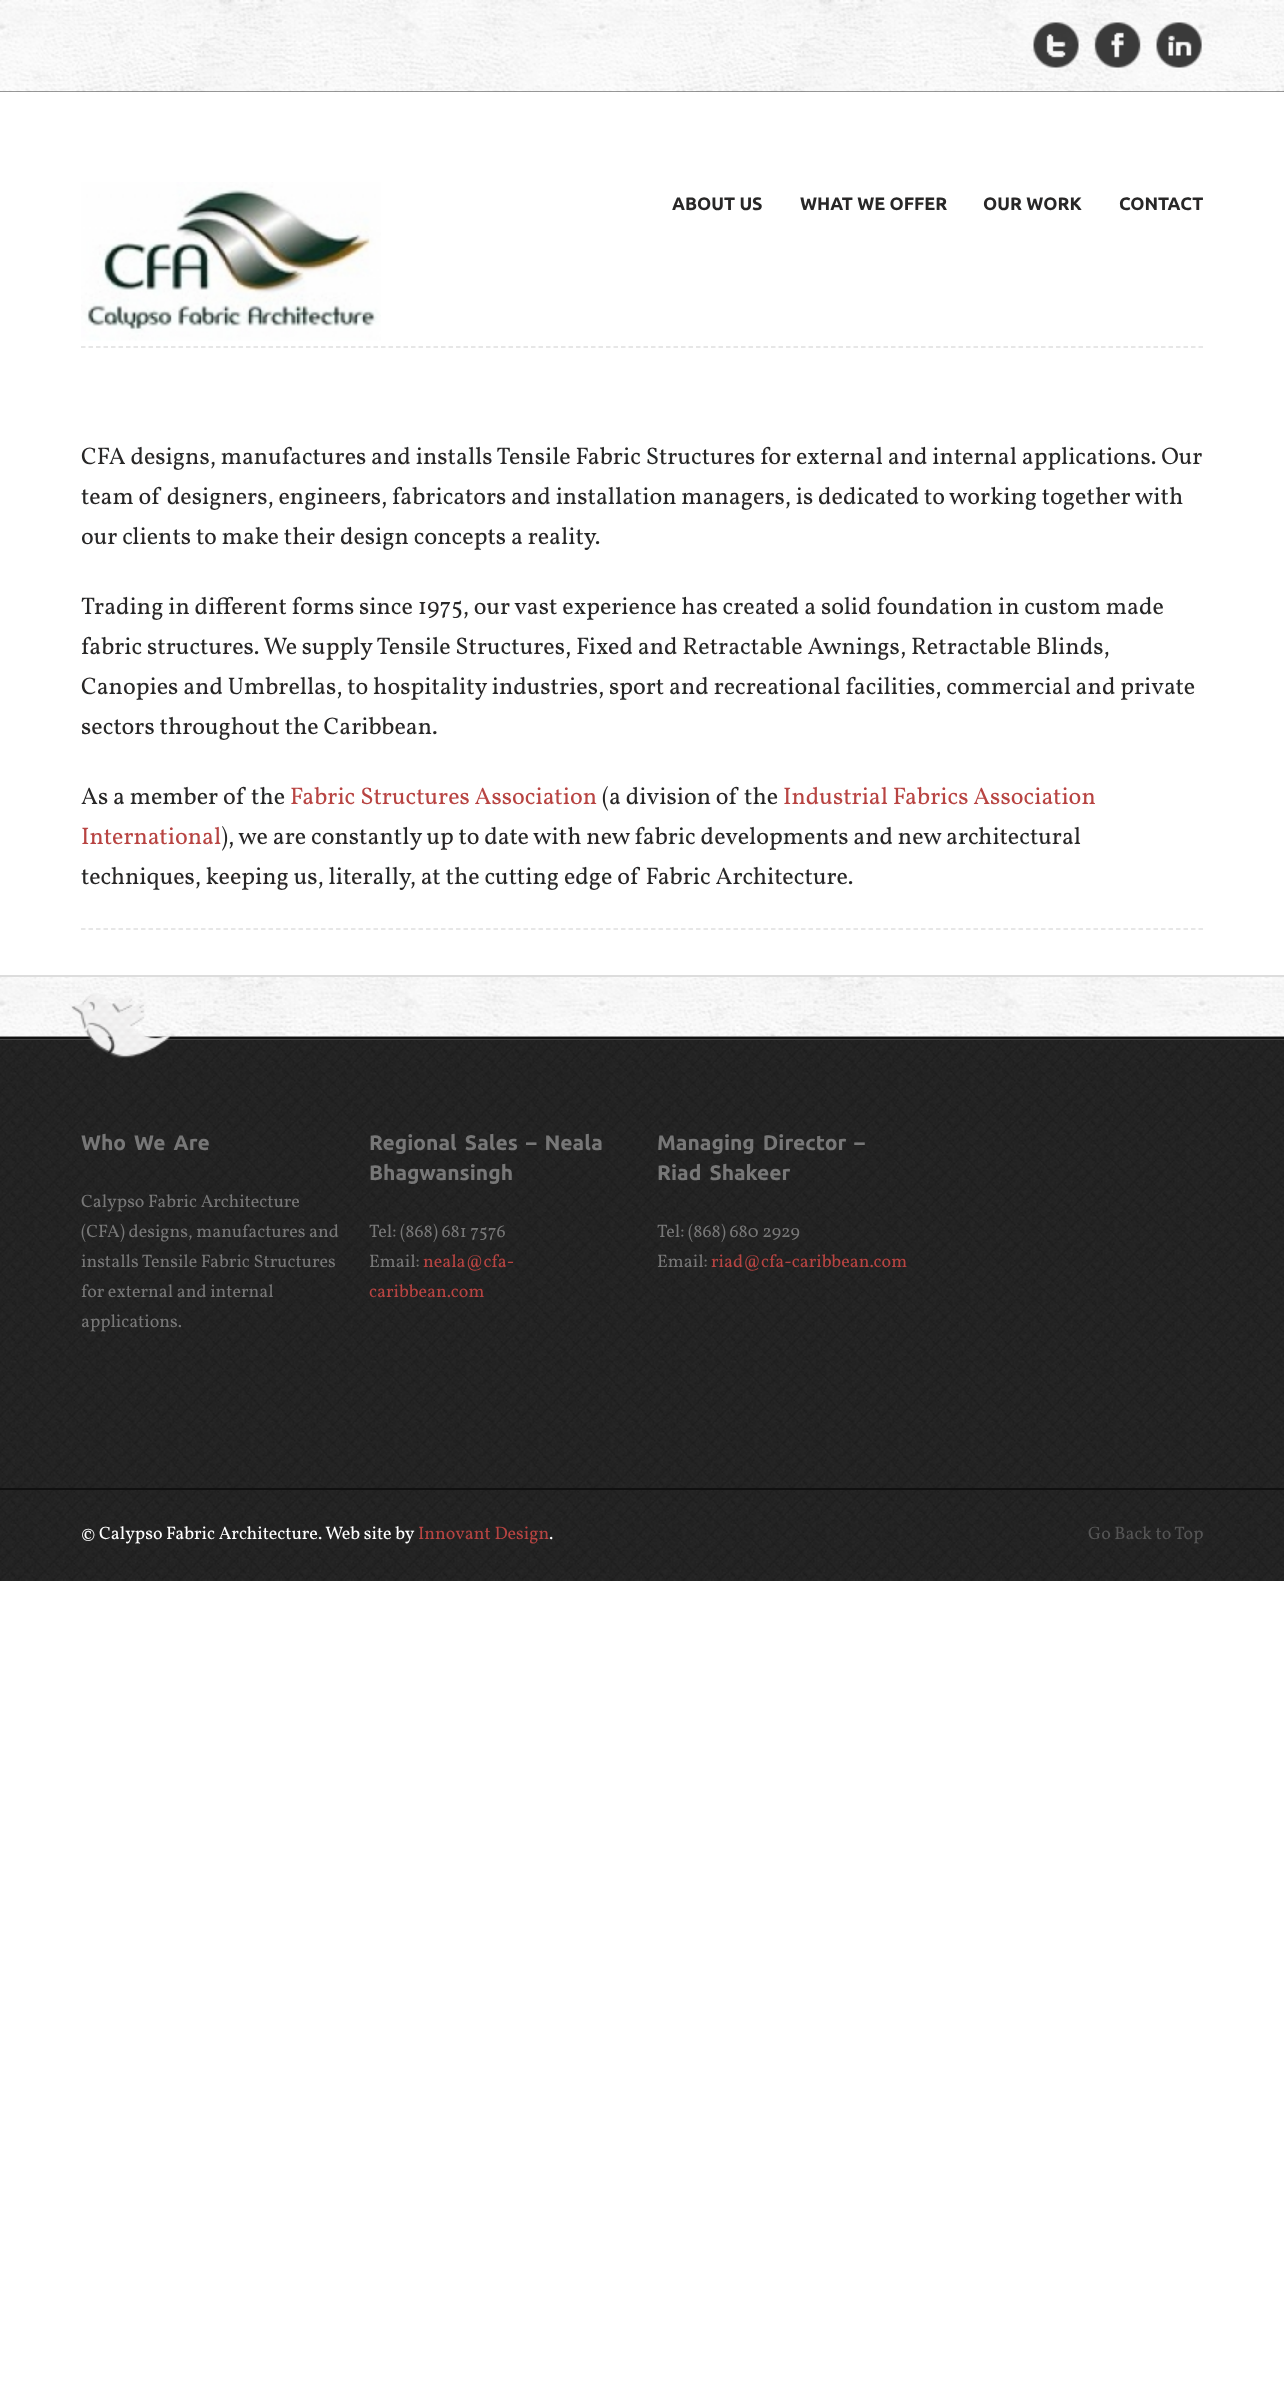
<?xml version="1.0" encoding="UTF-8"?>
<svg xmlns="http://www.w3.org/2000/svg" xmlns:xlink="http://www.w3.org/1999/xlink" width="1284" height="2397">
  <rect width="100%" height="100%" fill="#ffffff" />
  <rect y="91" width="1284" height="1" fill="#333333" />
  <image x="0" y="0" width="1284" height="92" xlink:href="image1.png" />
  <image x="1033" y="22" width="46" height="46" xlink:href="image2.png" />
  <image x="1094" y="22" width="47" height="46" xlink:href="image3.png" />
  <image x="1156" y="22" width="46" height="46" xlink:href="image4.png" />
  <path d="M 81 347 h 1122" fill="none" stroke="#e0e0e0" stroke-width="1.5" stroke-dasharray="4.5 3" />
  <image x="81" y="182" width="300" height="159" xlink:href="image5.png" />
  <path d="M 81 929 h 1122" fill="none" stroke="#e0e0e0" stroke-width="1.5" stroke-dasharray="4.5 3" />
  <image x="0" y="977" width="1284" height="60" xlink:href="image6.png" />
  <rect y="975" width="1284" height="2" fill="#dddddd" />
  <image x="0" y="1036" width="1284" height="452" xlink:href="image8.png" />
  <rect y="1039" width="1284" height="1" fill="#444444" />
  <rect y="1037" width="1284" height="2" fill="#111111" />
  <image x="71" y="993" width="99" height="65" xlink:href="image7.png" />
  <image x="0" y="1490" width="1284" height="91" xlink:href="image9.png" />
  <rect y="1488" width="1284" height="2" fill="#111111" />
  <text x="672" y="210" style="font-family: Ubuntu; font-size: 18px; font-weight: bold; fill: #282727">ABOUT US</text>
  <text x="800" y="210" style="font-family: Ubuntu; font-size: 18px; font-weight: bold; fill: #282727">WHAT WE OFFER</text>
  <text x="983" y="210" style="font-family: Ubuntu; font-size: 18px; font-weight: bold; fill: #282727">OUR WORK</text>
  <text x="1119" y="210" style="font-family: Ubuntu; font-size: 18px; font-weight: bold; fill: #282727">CONTACT</text>
  <text x="81" y="464" style="font-family: Vollkorn; font-size: 24px; fill: #282727">CFA designs, manufactures and installs Tensile Fabric Structures for external and internal applications. Our</text>
  <text x="81" y="504" style="font-family: Vollkorn; font-size: 24px; fill: #282727">team of designers, engineers, fabricators and installation managers, is dedicated to working together with</text>
  <text x="81" y="544" style="font-family: Vollkorn; font-size: 24px; fill: #282727">our clients to make their design concepts a reality.</text>
  <text x="81" y="614" style="font-family: Vollkorn; font-size: 24px; fill: #282727">Trading in different forms since 1975, our vast experience has created a solid foundation in custom made</text>
  <text x="81" y="654" style="font-family: Vollkorn; font-size: 24px; fill: #282727">fabric structures. We supply Tensile Structures, Fixed and Retractable Awnings, Retractable Blinds,</text>
  <text x="81" y="694" style="font-family: Vollkorn; font-size: 24px; fill: #282727">Canopies and Umbrellas, to hospitality industries, sport and recreational facilities, commercial and private</text>
  <text x="81" y="734" style="font-family: Vollkorn; font-size: 24px; fill: #282727">sectors throughout the Caribbean.</text>
  <text x="81" y="804" style="font-family: Vollkorn; font-size: 24px; fill: #282727">As a member of the</text>
  <text x="290" y="804" style="font-family: Vollkorn; font-size: 24px; fill: #b84442">Fabric Structures Association</text>
  <text x="602" y="804" style="font-family: Vollkorn; font-size: 24px; fill: #282727">(a division of the</text>
  <text x="783" y="804" style="font-family: Vollkorn; font-size: 24px; fill: #b84442">Industrial Fabrics Association</text>
  <text x="81" y="844" style="font-family: Vollkorn; font-size: 24px; fill: #b84442">International</text>
  <text x="221" y="844" style="font-family: Vollkorn; font-size: 24px; fill: #282727">), we are constantly up to date with new fabric developments and new architectural</text>
  <text x="81" y="884" style="font-family: Vollkorn; font-size: 24px; fill: #282727">techniques, keeping us, literally, at the cutting edge of Fabric Architecture.</text>
  <text x="81" y="1150" word-spacing="3" style="font-family: Ubuntu; font-size: 21px; font-weight: bold; fill: #777777">Who We Are</text>
  <text x="81" y="1207" style="font-family: Vollkorn; font-size: 18px; fill: #777777">Calypso Fabric Architecture</text>
  <text x="81" y="1237" style="font-family: Vollkorn; font-size: 18px; fill: #777777">(CFA) designs, manufactures and</text>
  <text x="81" y="1267" style="font-family: Vollkorn; font-size: 18px; fill: #777777">installs Tensile Fabric Structures</text>
  <text x="81" y="1297" style="font-family: Vollkorn; font-size: 18px; fill: #777777">for external and internal</text>
  <text x="81" y="1327" style="font-family: Vollkorn; font-size: 18px; fill: #777777">applications.</text>
  <text x="369" y="1150" word-spacing="3" style="font-family: Ubuntu; font-size: 21px; font-weight: bold; fill: #777777">Regional Sales – Neala</text>
  <text x="369" y="1180" style="font-family: Ubuntu; font-size: 21px; font-weight: bold; fill: #777777">Bhagwansingh</text>
  <text x="369" y="1237" style="font-family: Vollkorn; font-size: 18px; fill: #777777">Tel: (868) 681 7576</text>
  <text x="369" y="1267" style="font-family: Vollkorn; font-size: 18px; fill: #777777">Email:</text>
  <text x="423" y="1267" style="font-family: Vollkorn; font-size: 18px; fill: #b84442">neala@cfa-</text>
  <text x="369" y="1297" style="font-family: Vollkorn; font-size: 18px; fill: #b84442">caribbean.com</text>
  <text x="657" y="1150" word-spacing="3" style="font-family: Ubuntu; font-size: 21px; font-weight: bold; fill: #777777">Managing Director –</text>
  <text x="657" y="1180" word-spacing="3" style="font-family: Ubuntu; font-size: 21px; font-weight: bold; fill: #777777">Riad Shakeer</text>
  <text x="657" y="1237" style="font-family: Vollkorn; font-size: 18px; fill: #777777">Tel: (868) 680 2929</text>
  <text x="657" y="1267" style="font-family: Vollkorn; font-size: 18px; fill: #777777">Email:</text>
  <text x="711" y="1267" style="font-family: Vollkorn; font-size: 18px; fill: #b84442">riad@cfa-caribbean.com</text>
  <text x="81" y="1539" style="font-family: Vollkorn; font-size: 18px; fill: #ffffff">© Calypso Fabric Architecture. Web site by</text>
  <text x="418" y="1539" style="font-family: Vollkorn; font-size: 18px; fill: #b84442">Innovant Design</text>
  <text x="549" y="1539" style="font-family: Vollkorn; font-size: 18px; fill: #ffffff">.</text>
  <text x="1088" y="1539" style="font-family: Vollkorn; font-size: 18px; fill: #555555">Go Back to Top</text>
</svg>
